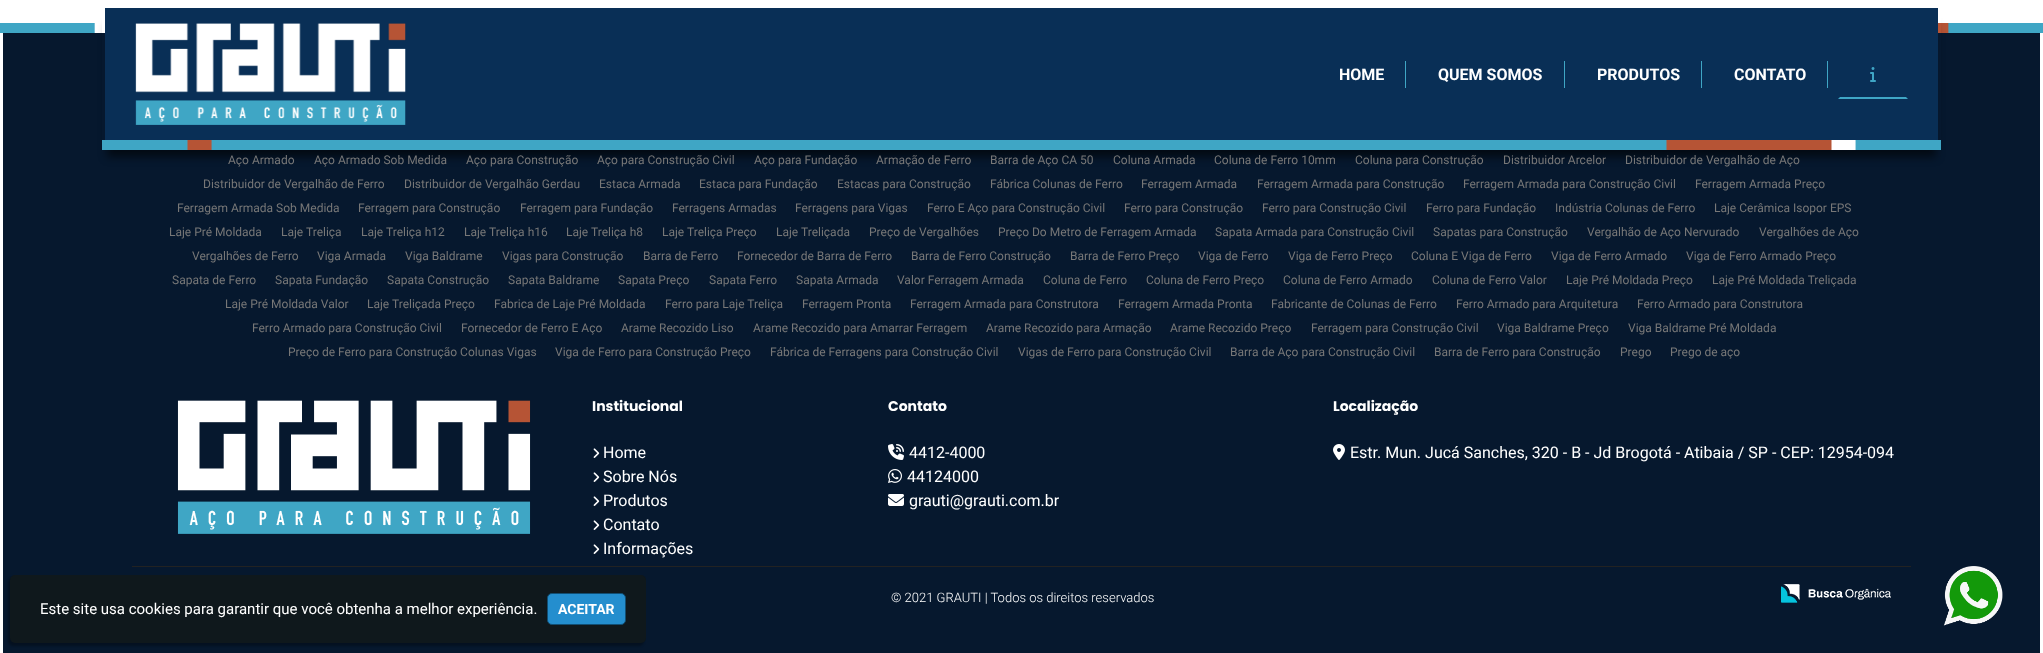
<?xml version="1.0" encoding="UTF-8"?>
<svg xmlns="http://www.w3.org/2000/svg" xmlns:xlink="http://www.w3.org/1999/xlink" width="2043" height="653">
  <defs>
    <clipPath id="clip1"><path d="M 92 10 h 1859 v 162 h -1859 z m 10 -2 h 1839 v 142 h -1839 z" clip-rule="evenodd" /></clipPath>
  </defs>
  <rect width="100%" height="100%" fill="#ffffff" />
  <rect x="3" y="33" width="2037" height="620" fill="#06182e" />
  <image x="0" y="23" width="2043" height="10" xlink:href="image4.png" />
  <g clip-path="url(#clip1)">
    <rect x="107" y="25" width="1829" height="132" fill="#000000" fill-opacity="0.58" filter="blur(4.5px)" />
  </g>
  <rect x="105" y="8" width="1833" height="132" fill="#092f56" />
  <image x="102" y="140" width="1839" height="10" xlink:href="image1.png" />
  <image x="135" y="23" width="271" height="102" xlink:href="image2.png" />
  <rect x="1405" y="61" width="1" height="27" fill="#3fa6c5" />
  <rect x="1564" y="61" width="1" height="27" fill="#3fa6c5" />
  <rect x="1701" y="61" width="1" height="27" fill="#3fa6c5" />
  <rect x="1827" y="61" width="1" height="27" fill="#3fa6c5" />
  <path d="M 1908 99 h -70 l 2 -2 h 66 z" fill="#3fa6c5" />
  <image x="1870" y="67" width="6" height="15" xlink:href="image3.png" />
  <image x="177" y="400" width="354" height="134" xlink:href="image5.png" />
  <image x="593" y="448" width="7" height="10" xlink:href="image6.png" />
  <image x="593" y="472" width="7" height="10" xlink:href="image6.png" />
  <image x="593" y="496" width="7" height="10" xlink:href="image6.png" />
  <image x="593" y="520" width="7" height="10" xlink:href="image6.png" />
  <image x="593" y="544" width="7" height="10" xlink:href="image6.png" />
  <image x="888" y="444" width="16" height="16" xlink:href="image7.png" />
  <image x="888" y="469" width="14" height="14" xlink:href="image8.png" />
  <image x="888" y="494" width="16" height="12" xlink:href="image9.png" />
  <image x="1333" y="444" width="12" height="16" xlink:href="image10.png" />
  <rect x="132" y="566" width="1779" height="1" fill="#222222" />
  <image x="1781" y="584" width="110" height="19" xlink:href="image11.png" />
  <image x="1943" y="566" width="60" height="60" xlink:href="image12.png" />
  <rect x="8" y="578" width="636" height="68" rx="5" fill="#000000" fill-opacity="0.3" filter="blur(1px)" />
  <rect x="10" y="575" width="636" height="68" rx="5" fill="#0f181c" />
  <rect x="547.5" y="593.5" width="78" height="31" rx="4.5" fill="#248ece" stroke="#114e73" />
  <text x="1339" y="80" style="font-family: Roboto; font-size: 16px; font-weight: bold; fill: #ffffff">HOME</text>
  <text x="1438" y="80" style="font-family: Roboto; font-size: 16px; font-weight: bold; fill: #ffffff">QUEM SOMOS</text>
  <text x="1597" y="80" style="font-family: Roboto; font-size: 16px; font-weight: bold; fill: #ffffff">PRODUTOS</text>
  <text x="1734" y="80" style="font-family: Roboto; font-size: 16px; font-weight: bold; fill: #ffffff">CONTATO</text>
  <text x="228" y="164" style="font-family: Roboto; font-size: 12px; fill: #777777">Aço Armado</text>
  <text x="314" y="164" style="font-family: Roboto; font-size: 12px; fill: #777777">Aço Armado Sob Medida</text>
  <text x="466" y="164" style="font-family: Roboto; font-size: 12px; fill: #777777">Aço para Construção</text>
  <text x="597" y="164" style="font-family: Roboto; font-size: 12px; fill: #777777">Aço para Construção Civil</text>
  <text x="754" y="164" style="font-family: Roboto; font-size: 12px; fill: #777777">Aço para Fundação</text>
  <text x="876" y="164" style="font-family: Roboto; font-size: 12px; fill: #777777">Armação de Ferro</text>
  <text x="990" y="164" style="font-family: Roboto; font-size: 12px; fill: #777777">Barra de Aço CA 50</text>
  <text x="1113" y="164" style="font-family: Roboto; font-size: 12px; fill: #777777">Coluna Armada</text>
  <text x="1214" y="164" style="font-family: Roboto; font-size: 12px; fill: #777777">Coluna de Ferro 10mm</text>
  <text x="1355" y="164" style="font-family: Roboto; font-size: 12px; fill: #777777">Coluna para Construção</text>
  <text x="1503" y="164" style="font-family: Roboto; font-size: 12px; fill: #777777">Distribuidor Arcelor</text>
  <text x="1625" y="164" style="font-family: Roboto; font-size: 12px; fill: #777777">Distribuidor de Vergalhão de Aço</text>
  <text x="203" y="188" style="font-family: Roboto; font-size: 12px; fill: #777777">Distribuidor de Vergalhão de Ferro</text>
  <text x="404" y="188" style="font-family: Roboto; font-size: 12px; fill: #777777">Distribuidor de Vergalhão Gerdau</text>
  <text x="599" y="188" style="font-family: Roboto; font-size: 12px; fill: #777777">Estaca Armada</text>
  <text x="699" y="188" style="font-family: Roboto; font-size: 12px; fill: #777777">Estaca para Fundação</text>
  <text x="837" y="188" style="font-family: Roboto; font-size: 12px; fill: #777777">Estacas para Construção</text>
  <text x="990" y="188" style="font-family: Roboto; font-size: 12px; fill: #777777">Fábrica Colunas de Ferro</text>
  <text x="1141" y="188" style="font-family: Roboto; font-size: 12px; fill: #777777">Ferragem Armada</text>
  <text x="1257" y="188" style="font-family: Roboto; font-size: 12px; fill: #777777">Ferragem Armada para Construção</text>
  <text x="1463" y="188" style="font-family: Roboto; font-size: 12px; fill: #777777">Ferragem Armada para Construção Civil</text>
  <text x="1695" y="188" style="font-family: Roboto; font-size: 12px; fill: #777777">Ferragem Armada Preço</text>
  <text x="177" y="212" style="font-family: Roboto; font-size: 12px; fill: #777777">Ferragem Armada Sob Medida</text>
  <text x="358" y="212" style="font-family: Roboto; font-size: 12px; fill: #777777">Ferragem para Construção</text>
  <text x="520" y="212" style="font-family: Roboto; font-size: 12px; fill: #777777">Ferragem para Fundação</text>
  <text x="672" y="212" style="font-family: Roboto; font-size: 12px; fill: #777777">Ferragens Armadas</text>
  <text x="795" y="212" style="font-family: Roboto; font-size: 12px; fill: #777777">Ferragens para Vigas</text>
  <text x="927" y="212" style="font-family: Roboto; font-size: 12px; fill: #777777">Ferro E Aço para Construção Civil</text>
  <text x="1124" y="212" style="font-family: Roboto; font-size: 12px; fill: #777777">Ferro para Construção</text>
  <text x="1262" y="212" style="font-family: Roboto; font-size: 12px; fill: #777777">Ferro para Construção Civil</text>
  <text x="1426" y="212" style="font-family: Roboto; font-size: 12px; fill: #777777">Ferro para Fundação</text>
  <text x="1555" y="212" style="font-family: Roboto; font-size: 12px; fill: #777777">Indústria Colunas de Ferro</text>
  <text x="1714" y="212" style="font-family: Roboto; font-size: 12px; fill: #777777">Laje Cerâmica Isopor EPS</text>
  <text x="169" y="236" style="font-family: Roboto; font-size: 12px; fill: #777777">Laje Pré Moldada</text>
  <text x="281" y="236" style="font-family: Roboto; font-size: 12px; fill: #777777">Laje Treliça</text>
  <text x="361" y="236" style="font-family: Roboto; font-size: 12px; fill: #777777">Laje Treliça h12</text>
  <text x="464" y="236" style="font-family: Roboto; font-size: 12px; fill: #777777">Laje Treliça h16</text>
  <text x="566" y="236" style="font-family: Roboto; font-size: 12px; fill: #777777">Laje Treliça h8</text>
  <text x="662" y="236" style="font-family: Roboto; font-size: 12px; fill: #777777">Laje Treliça Preço</text>
  <text x="776" y="236" style="font-family: Roboto; font-size: 12px; fill: #777777">Laje Treliçada</text>
  <text x="869" y="236" style="font-family: Roboto; font-size: 12px; fill: #777777">Preço de Vergalhões</text>
  <text x="998" y="236" style="font-family: Roboto; font-size: 12px; fill: #777777">Preço Do Metro de Ferragem Armada</text>
  <text x="1215" y="236" style="font-family: Roboto; font-size: 12px; fill: #777777">Sapata Armada para Construção Civil</text>
  <text x="1433" y="236" style="font-family: Roboto; font-size: 12px; fill: #777777">Sapatas para Construção</text>
  <text x="1587" y="236" style="font-family: Roboto; font-size: 12px; fill: #777777">Vergalhão de Aço Nervurado</text>
  <text x="1759" y="236" style="font-family: Roboto; font-size: 12px; fill: #777777">Vergalhões de Aço</text>
  <text x="192" y="260" style="font-family: Roboto; font-size: 12px; fill: #777777">Vergalhões de Ferro</text>
  <text x="317" y="260" style="font-family: Roboto; font-size: 12px; fill: #777777">Viga Armada</text>
  <text x="405" y="260" style="font-family: Roboto; font-size: 12px; fill: #777777">Viga Baldrame</text>
  <text x="502" y="260" style="font-family: Roboto; font-size: 12px; fill: #777777">Vigas para Construção</text>
  <text x="643" y="260" style="font-family: Roboto; font-size: 12px; fill: #777777">Barra de Ferro</text>
  <text x="737" y="260" style="font-family: Roboto; font-size: 12px; fill: #777777">Fornecedor de Barra de Ferro</text>
  <text x="911" y="260" style="font-family: Roboto; font-size: 12px; fill: #777777">Barra de Ferro Construção</text>
  <text x="1070" y="260" style="font-family: Roboto; font-size: 12px; fill: #777777">Barra de Ferro Preço</text>
  <text x="1198" y="260" style="font-family: Roboto; font-size: 12px; fill: #777777">Viga de Ferro</text>
  <text x="1288" y="260" style="font-family: Roboto; font-size: 12px; fill: #777777">Viga de Ferro Preço</text>
  <text x="1411" y="260" style="font-family: Roboto; font-size: 12px; fill: #777777">Coluna E Viga de Ferro</text>
  <text x="1551" y="260" style="font-family: Roboto; font-size: 12px; fill: #777777">Viga de Ferro Armado</text>
  <text x="1686" y="260" style="font-family: Roboto; font-size: 12px; fill: #777777">Viga de Ferro Armado Preço</text>
  <text x="172" y="284" style="font-family: Roboto; font-size: 12px; fill: #777777">Sapata de Ferro</text>
  <text x="275" y="284" style="font-family: Roboto; font-size: 12px; fill: #777777">Sapata Fundação</text>
  <text x="387" y="284" style="font-family: Roboto; font-size: 12px; fill: #777777">Sapata Construção</text>
  <text x="508" y="284" style="font-family: Roboto; font-size: 12px; fill: #777777">Sapata Baldrame</text>
  <text x="618" y="284" style="font-family: Roboto; font-size: 12px; fill: #777777">Sapata Preço</text>
  <text x="709" y="284" style="font-family: Roboto; font-size: 12px; fill: #777777">Sapata Ferro</text>
  <text x="796" y="284" style="font-family: Roboto; font-size: 12px; fill: #777777">Sapata Armada</text>
  <text x="897" y="284" style="font-family: Roboto; font-size: 12px; fill: #777777">Valor Ferragem Armada</text>
  <text x="1043" y="284" style="font-family: Roboto; font-size: 12px; fill: #777777">Coluna de Ferro</text>
  <text x="1146" y="284" style="font-family: Roboto; font-size: 12px; fill: #777777">Coluna de Ferro Preço</text>
  <text x="1283" y="284" style="font-family: Roboto; font-size: 12px; fill: #777777">Coluna de Ferro Armado</text>
  <text x="1432" y="284" style="font-family: Roboto; font-size: 12px; fill: #777777">Coluna de Ferro Valor</text>
  <text x="1566" y="284" style="font-family: Roboto; font-size: 12px; fill: #777777">Laje Pré Moldada Preço</text>
  <text x="1712" y="284" style="font-family: Roboto; font-size: 12px; fill: #777777">Laje Pré Moldada Treliçada</text>
  <text x="225" y="308" style="font-family: Roboto; font-size: 12px; fill: #777777">Laje Pré Moldada Valor</text>
  <text x="367" y="308" style="font-family: Roboto; font-size: 12px; fill: #777777">Laje Treliçada Preço</text>
  <text x="494" y="308" style="font-family: Roboto; font-size: 12px; fill: #777777">Fabrica de Laje Pré Moldada</text>
  <text x="665" y="308" style="font-family: Roboto; font-size: 12px; fill: #777777">Ferro para Laje Treliça</text>
  <text x="802" y="308" style="font-family: Roboto; font-size: 12px; fill: #777777">Ferragem Pronta</text>
  <text x="910" y="308" style="font-family: Roboto; font-size: 12px; fill: #777777">Ferragem Armada para Construtora</text>
  <text x="1118" y="308" style="font-family: Roboto; font-size: 12px; fill: #777777">Ferragem Armada Pronta</text>
  <text x="1271" y="308" style="font-family: Roboto; font-size: 12px; fill: #777777">Fabricante de Colunas de Ferro</text>
  <text x="1456" y="308" style="font-family: Roboto; font-size: 12px; fill: #777777">Ferro Armado para Arquitetura</text>
  <text x="1637" y="308" style="font-family: Roboto; font-size: 12px; fill: #777777">Ferro Armado para Construtora</text>
  <text x="252" y="332" style="font-family: Roboto; font-size: 12px; fill: #777777">Ferro Armado para Construção Civil</text>
  <text x="461" y="332" style="font-family: Roboto; font-size: 12px; fill: #777777">Fornecedor de Ferro E Aço</text>
  <text x="621" y="332" style="font-family: Roboto; font-size: 12px; fill: #777777">Arame Recozido Liso</text>
  <text x="753" y="332" style="font-family: Roboto; font-size: 12px; fill: #777777">Arame Recozido para Amarrar Ferragem</text>
  <text x="986" y="332" style="font-family: Roboto; font-size: 12px; fill: #777777">Arame Recozido para Armação</text>
  <text x="1170" y="332" style="font-family: Roboto; font-size: 12px; fill: #777777">Arame Recozido Preço</text>
  <text x="1311" y="332" style="font-family: Roboto; font-size: 12px; fill: #777777">Ferragem para Construção Civil</text>
  <text x="1497" y="332" style="font-family: Roboto; font-size: 12px; fill: #777777">Viga Baldrame Preço</text>
  <text x="1628" y="332" style="font-family: Roboto; font-size: 12px; fill: #777777">Viga Baldrame Pré Moldada</text>
  <text x="288" y="356" style="font-family: Roboto; font-size: 12px; fill: #777777">Preço de Ferro para Construção Colunas Vigas</text>
  <text x="555" y="356" style="font-family: Roboto; font-size: 12px; fill: #777777">Viga de Ferro para Construção Preço</text>
  <text x="770" y="356" style="font-family: Roboto; font-size: 12px; fill: #777777">Fábrica de Ferragens para Construção Civil</text>
  <text x="1018" y="356" style="font-family: Roboto; font-size: 12px; fill: #777777">Vigas de Ferro para Construção Civil</text>
  <text x="1230" y="356" style="font-family: Roboto; font-size: 12px; fill: #777777">Barra de Aço para Construção Civil</text>
  <text x="1434" y="356" style="font-family: Roboto; font-size: 12px; fill: #777777">Barra de Ferro para Construção</text>
  <text x="1620" y="356" style="font-family: Roboto; font-size: 12px; fill: #777777">Prego</text>
  <text x="1670" y="356" style="font-family: Roboto; font-size: 12px; fill: #777777">Prego de aço</text>
  <text x="592" y="411" style="font-family: Poppins; font-size: 14px; font-weight: bold; fill: #ffffff">Institucional</text>
  <text x="603" y="458" style="font-family: Roboto; font-size: 16px; fill: #ffffff">Home</text>
  <text x="603" y="482" style="font-family: Roboto; font-size: 16px; fill: #ffffff">Sobre Nós</text>
  <text x="603" y="506" style="font-family: Roboto; font-size: 16px; fill: #ffffff">Produtos</text>
  <text x="603" y="530" style="font-family: Roboto; font-size: 16px; fill: #ffffff">Contato</text>
  <text x="603" y="554" style="font-family: Roboto; font-size: 16px; fill: #ffffff">Informações</text>
  <text x="888" y="411" style="font-family: Poppins; font-size: 14px; font-weight: bold; fill: #ffffff">Contato</text>
  <text x="909" y="458" style="font-family: Roboto; font-size: 16px; fill: #ffffff">4412-4000</text>
  <text x="907" y="482" style="font-family: Roboto; font-size: 16px; fill: #ffffff">44124000</text>
  <text x="909" y="506" style="font-family: Roboto; font-size: 16px; fill: #ffffff">grauti@grauti.com.br</text>
  <text x="1333" y="411" style="font-family: Poppins; font-size: 14px; font-weight: bold; fill: #ffffff">Localização</text>
  <text x="1350" y="458" style="font-family: Roboto; font-size: 16px; fill: #ffffff">Estr. Mun. Jucá Sanches, 320 - B - Jd Brogotá - Atibaia / SP - CEP: 12954-094</text>
  <text x="891" y="602" style="font-family: Roboto; font-size: 13px; font-weight: 300; fill: #ffffff">© 2021 GRAUTI | Todos os direitos reservados</text>
  <text x="40" y="614" style="font-family: Roboto; font-size: 15px; fill: #ffffff">Este site usa cookies para garantir que você obtenha a melhor experiência.</text>
  <text x="558" y="614" style="font-family: Roboto; font-size: 14px; font-weight: bold; fill: #ffffff">ACEITAR</text>
</svg>
